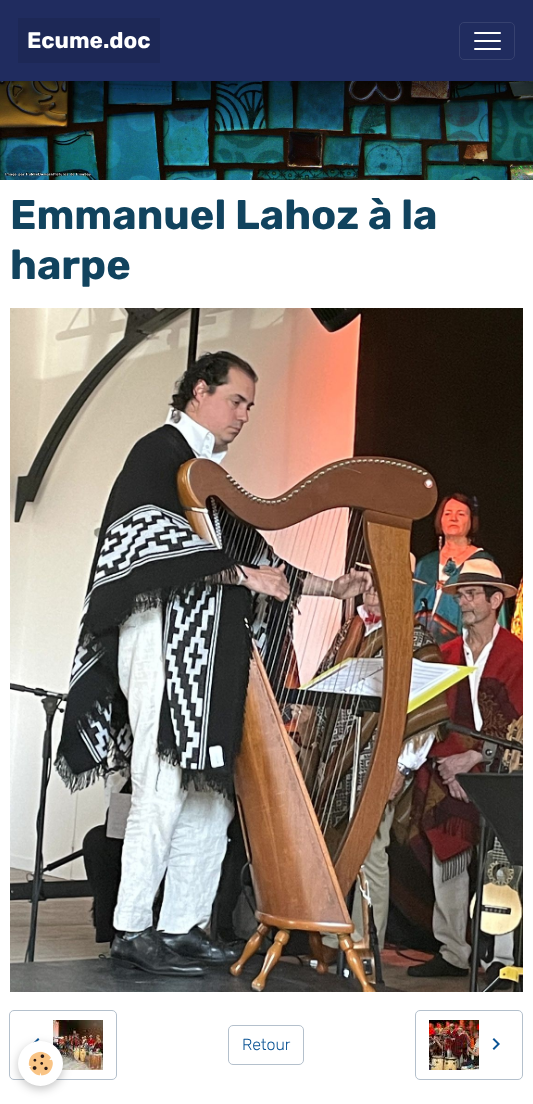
<?xml version="1.0" encoding="UTF-8"?>
<svg xmlns="http://www.w3.org/2000/svg" xmlns:xlink="http://www.w3.org/1999/xlink" width="533" height="1104">
  <rect width="100%" height="100%" fill="#ffffff" />
  <rect width="533" height="81" fill="#202c5f" />
  <rect x="18" y="18" width="142" height="45" fill="#1d2856" />
  <rect x="459.5" y="22.5" width="55" height="37" rx="4.5" fill="none" stroke="#36416f" />
  <rect x="474" y="32" width="27" height="2" rx="1" fill="#ffffff" />
  <rect x="474" y="40" width="27" height="2" rx="1" fill="#ffffff" />
  <rect x="474" y="48" width="27" height="2" rx="1" fill="#ffffff" />
  <image x="0" y="81" width="533" height="99" xlink:href="image1.png" />
  <image x="10" y="308" width="513" height="684" xlink:href="image2.png" />
  <rect x="9.5" y="1010.5" width="107" height="69" rx="4.5" fill="none" stroke="#b4c0cc" />
  <image x="33" y="1038" width="7" height="5" xlink:href="image3.png" />
  <image x="53" y="1020" width="50" height="50" xlink:href="image4.png" />
  <rect x="228.5" y="1025.5" width="75" height="39" rx="4.5" fill="none" stroke="#b4c0cc" />
  <rect x="415.5" y="1010.5" width="107" height="69" rx="4.5" fill="none" stroke="#b4c0cc" />
  <image x="429" y="1020" width="50" height="50" xlink:href="image5.png" />
  <image x="492" y="1038" width="8" height="12" xlink:href="image6.png" />
  <rect x="18" y="1044" width="45" height="45" rx="22.5" fill="#000000" fill-opacity="0.24" filter="blur(5px)" />
  <circle cx="40.5" cy="1063.5" r="22.5" fill="#ffffff" />
  <image x="28" y="1051" width="25" height="25" xlink:href="image7.png" />
  <text x="27" y="48" style="font-family: Rubik; font-size: 22.5px; font-weight: bold; fill: #ffffff">Ecume.doc</text>
  <text x="10" y="229" style="font-family: Rubik; font-size: 41.4px; font-weight: bold; fill: #11435e">Emmanuel Lahoz à la</text>
  <text x="10" y="279" style="font-family: Rubik; font-size: 41.4px; font-weight: bold; fill: #11435e">harpe</text>
  <text x="242" y="1050" style="font-family: Rubik; font-size: 16px; font-weight: 300; fill: #0b5394">Retour</text>
</svg>
